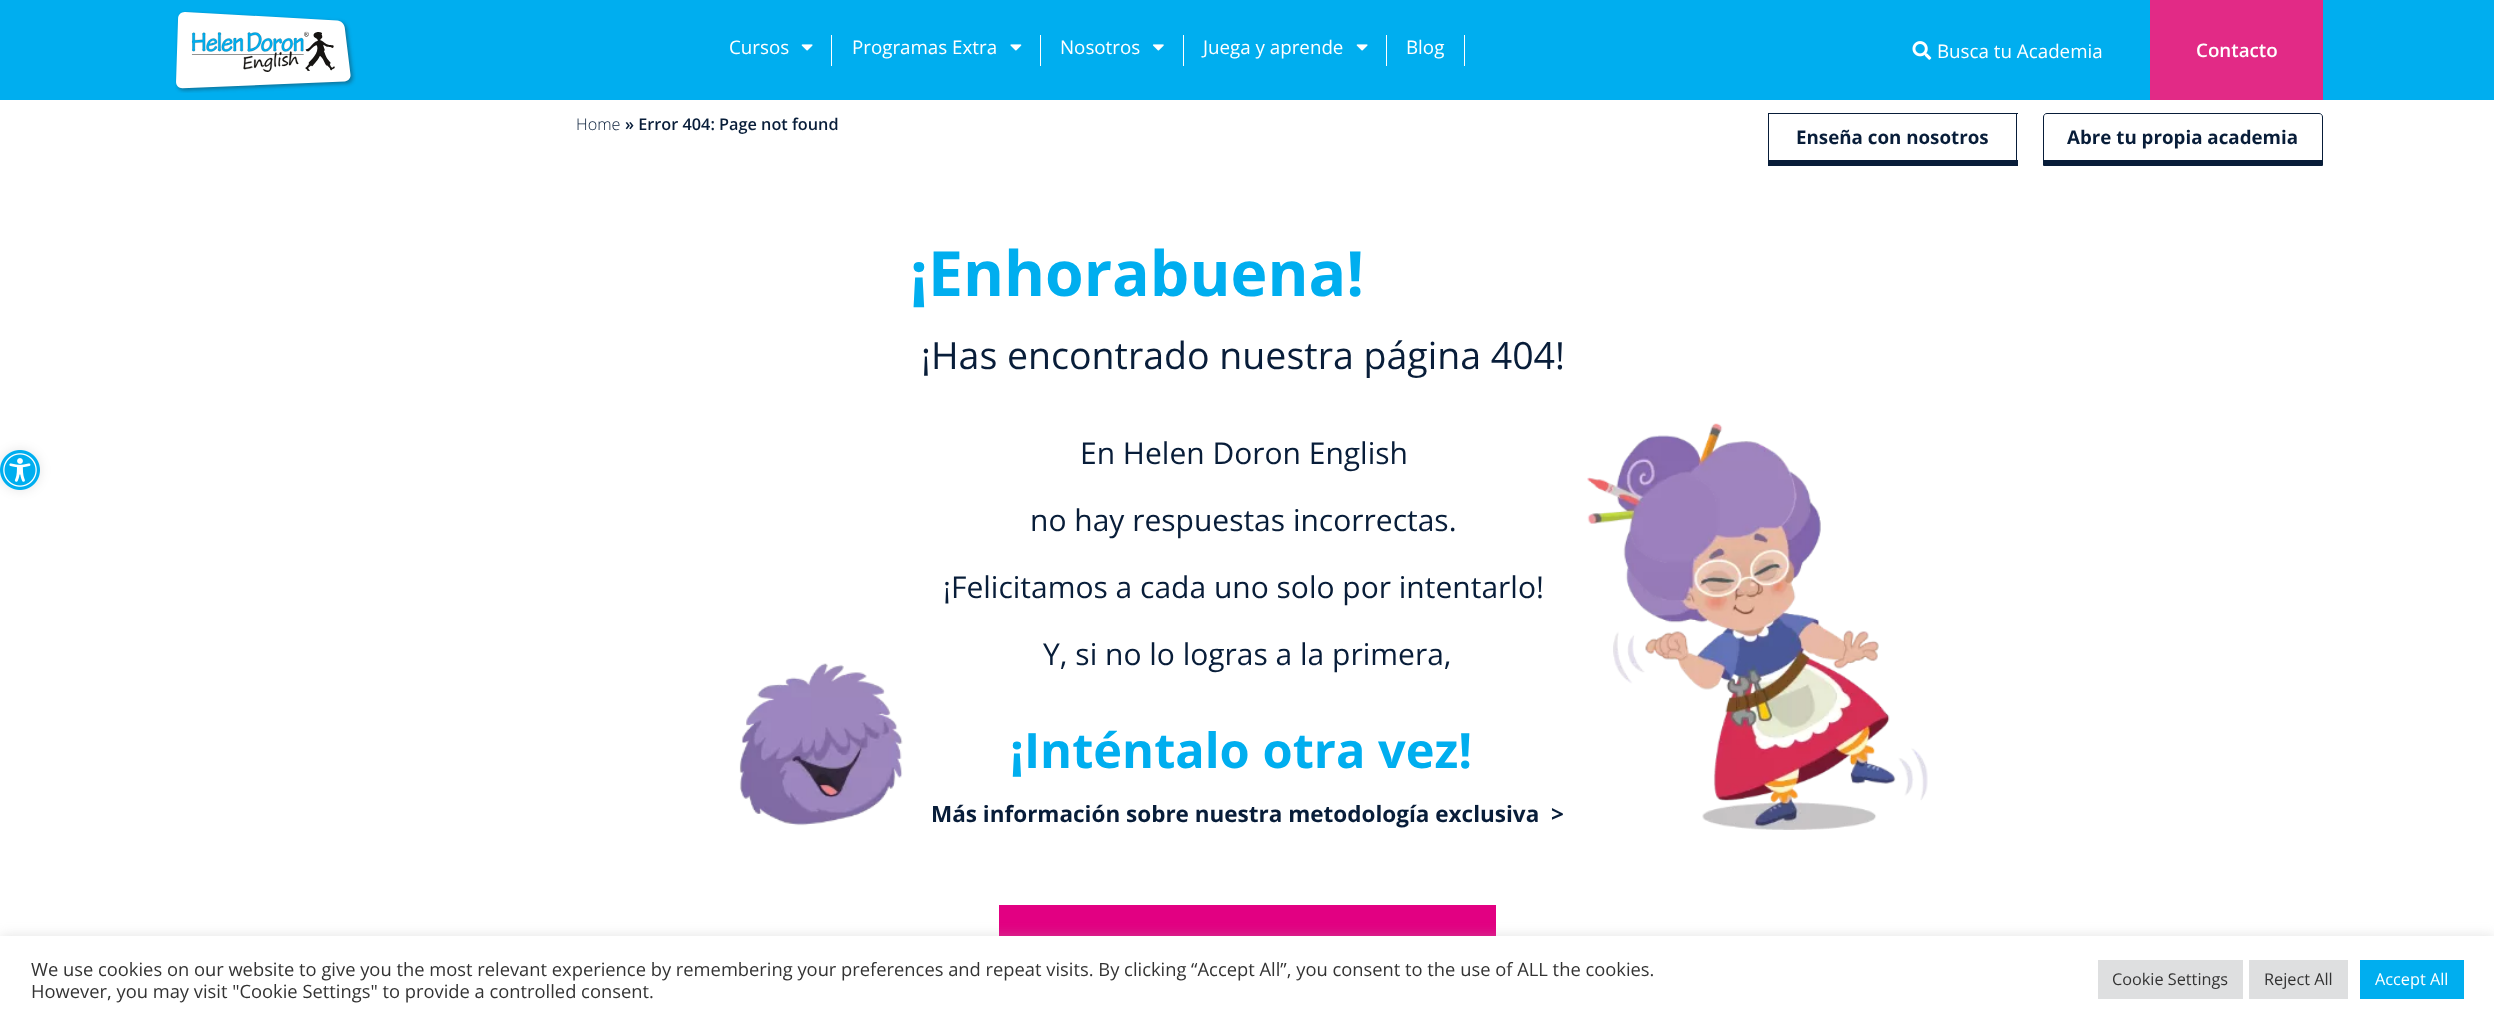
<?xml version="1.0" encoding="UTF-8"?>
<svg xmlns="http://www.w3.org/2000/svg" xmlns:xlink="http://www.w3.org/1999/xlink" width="2494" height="1022">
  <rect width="100%" height="100%" fill="#ffffff" />
  <rect y="450" width="40" height="40" rx="20" fill="#000000" fill-opacity="0.1" filter="blur(6px)" />
  <circle cx="20" cy="470" r="20" fill="#ffffff" />
  <image x="0" y="450" width="40" height="40" xlink:href="image1.png" />
  <rect width="2494" height="100" fill="#00aeef" />
  <image x="175" y="11" width="181" height="82" xlink:href="image2.png" />
  <rect x="831" y="35" width="1" height="31" fill="#ffffff" />
  <image x="801" y="44" width="12" height="7" xlink:href="image3.png" />
  <rect x="1040" y="35" width="1" height="31" fill="#ffffff" />
  <image x="1010" y="44" width="12" height="7" xlink:href="image4.png" />
  <rect x="1183" y="35" width="1" height="31" fill="#ffffff" />
  <image x="1152" y="44" width="12" height="7" xlink:href="image5.png" />
  <rect x="1386" y="35" width="1" height="31" fill="#ffffff" />
  <image x="1356" y="44" width="12" height="7" xlink:href="image3.png" />
  <rect x="1464" y="35" width="1" height="31" fill="#ffffff" />
  <image x="1912" y="41" width="20" height="19" xlink:href="image6.png" />
  <rect x="2150" width="173" height="100" fill="#e22a86" />
  <rect x="1768" y="113" width="250" height="1" fill="#081d39" />
  <rect x="2016" y="113" width="1" height="53" fill="#081d39" />
  <rect x="1768" y="160" width="250" height="6" fill="#081d39" />
  <rect x="1768" y="113" width="1" height="53" fill="#081d39" />
  <path d="M 2047 113.5 h 272 c 2 0 3.5 1.5 3.5 3.5 v 48.5 h -279 v -48.5 c 0 -2 1.5 -3.5 3.5 -3.5 z" fill="none" stroke="#081d39" />
  <rect x="2043" y="160" width="280" height="5" fill="#081d39" />
  <image x="739" y="663" width="164" height="163" xlink:href="image7.png" />
  <image x="1587" y="423" width="341" height="407" xlink:href="image8.png" />
  <rect x="999" y="905" width="497" height="31" fill="#e20082" />
  <rect y="935" width="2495" height="86" fill="#acabab" fill-opacity="0.3" filter="blur(6px)" />
  <rect y="936" width="2494" height="86" fill="#ffffff" />
  <rect x="2098" y="960" width="145" height="39" fill="#dedfe0" />
  <rect x="2249" y="960" width="99" height="39" fill="#dedfe0" />
  <rect x="2360" y="960" width="104" height="39" fill="#00aeef" />
  <text x="729" y="54" style="font-family: Open Sans; font-size: 18.75px; fill: #ffffff">Cursos</text>
  <text x="852" y="54" style="font-family: Open Sans; font-size: 18.75px; fill: #ffffff">Programas Extra</text>
  <text x="1060" y="54" style="font-family: Open Sans; font-size: 18.75px; fill: #ffffff">Nosotros</text>
  <text x="1203" y="54" style="font-family: Open Sans; font-size: 18.75px; fill: #ffffff">Juega y aprende</text>
  <text x="1406" y="54" style="font-family: Open Sans; font-size: 18.75px; fill: #ffffff">Blog</text>
  <text x="1937" y="58" style="font-family: Open Sans; font-size: 18.75px; fill: #ffffff">Busca tu Academia</text>
  <text x="2196" y="57" style="font-family: Open Sans; font-size: 18.75px; font-weight: 600; fill: #ffffff">Contacto</text>
  <text x="576" y="130" style="font-family: Open Sans; font-size: 16.25px; font-weight: 300; fill: #081d39">Home</text>
  <text x="625" y="130" style="font-family: Open Sans; font-size: 16.25px; font-weight: 600; fill: #081d39">» Error 404: Page not found</text>
  <text x="1796" y="144" style="font-family: Open Sans; font-size: 18.75px; font-weight: bold; fill: #081d39">Enseña con nosotros</text>
  <text x="2067" y="144" style="font-family: Open Sans; font-size: 18.75px; font-weight: bold; fill: #081d39">Abre tu propia academia</text>
  <text x="910" y="296" style="font-family: Open Sans; font-size: 62.5px; font-weight: bold; fill: #00aeef">¡Enhorabuena!</text>
  <text x="921" y="369" style="font-family: Open Sans; font-size: 37.5px; fill: #081d39">¡Has encontrado nuestra página 404!</text>
  <text x="1080" y="464" style="font-family: Open Sans; font-size: 30px; fill: #081d39">En Helen Doron English</text>
  <text x="1030" y="531" style="font-family: Open Sans; font-size: 30px; fill: #081d39">no hay respuestas incorrectas.</text>
  <text x="943" y="598" style="font-family: Open Sans; font-size: 30px; fill: #081d39">¡Felicitamos a cada uno solo por intentarlo!</text>
  <text x="1043" y="665" style="font-family: Open Sans; font-size: 30px; fill: #081d39">Y, si no lo logras a la primera,</text>
  <text x="1010" y="768" style="font-family: Open Sans; font-size: 48.75px; font-weight: bold; fill: #00aeef">¡Inténtalo otra vez!</text>
  <text x="931" y="822" style="font-family: Open Sans; font-size: 22.5px; font-weight: bold; fill: #081d39">Más información sobre nuestra metodología exclusiva</text>
  <text x="1551" y="822" style="font-family: Open Sans; font-size: 22.5px; font-weight: bold; fill: #081d39">&gt;</text>
  <text x="31" y="976" style="font-family: Open Sans; font-size: 18.33px; fill: #333333">We use cookies on our website to give you the most relevant experience by remembering your preferences and repeat visits. By clicking “Accept All”, you consent to the use of ALL the cookies.</text>
  <text x="31" y="998" style="font-family: Open Sans; font-size: 18.33px; fill: #333333">However, you may visit "Cookie Settings" to provide a controlled consent.</text>
  <text x="2112" y="985" style="font-family: Open Sans; font-size: 16.25px; fill: #333333">Cookie Settings</text>
  <text x="2264" y="985" style="font-family: Open Sans; font-size: 16.25px; fill: #333333">Reject All</text>
  <text x="2375" y="985" style="font-family: Open Sans; font-size: 16.25px; fill: #ffffff">Accept All</text>
</svg>
